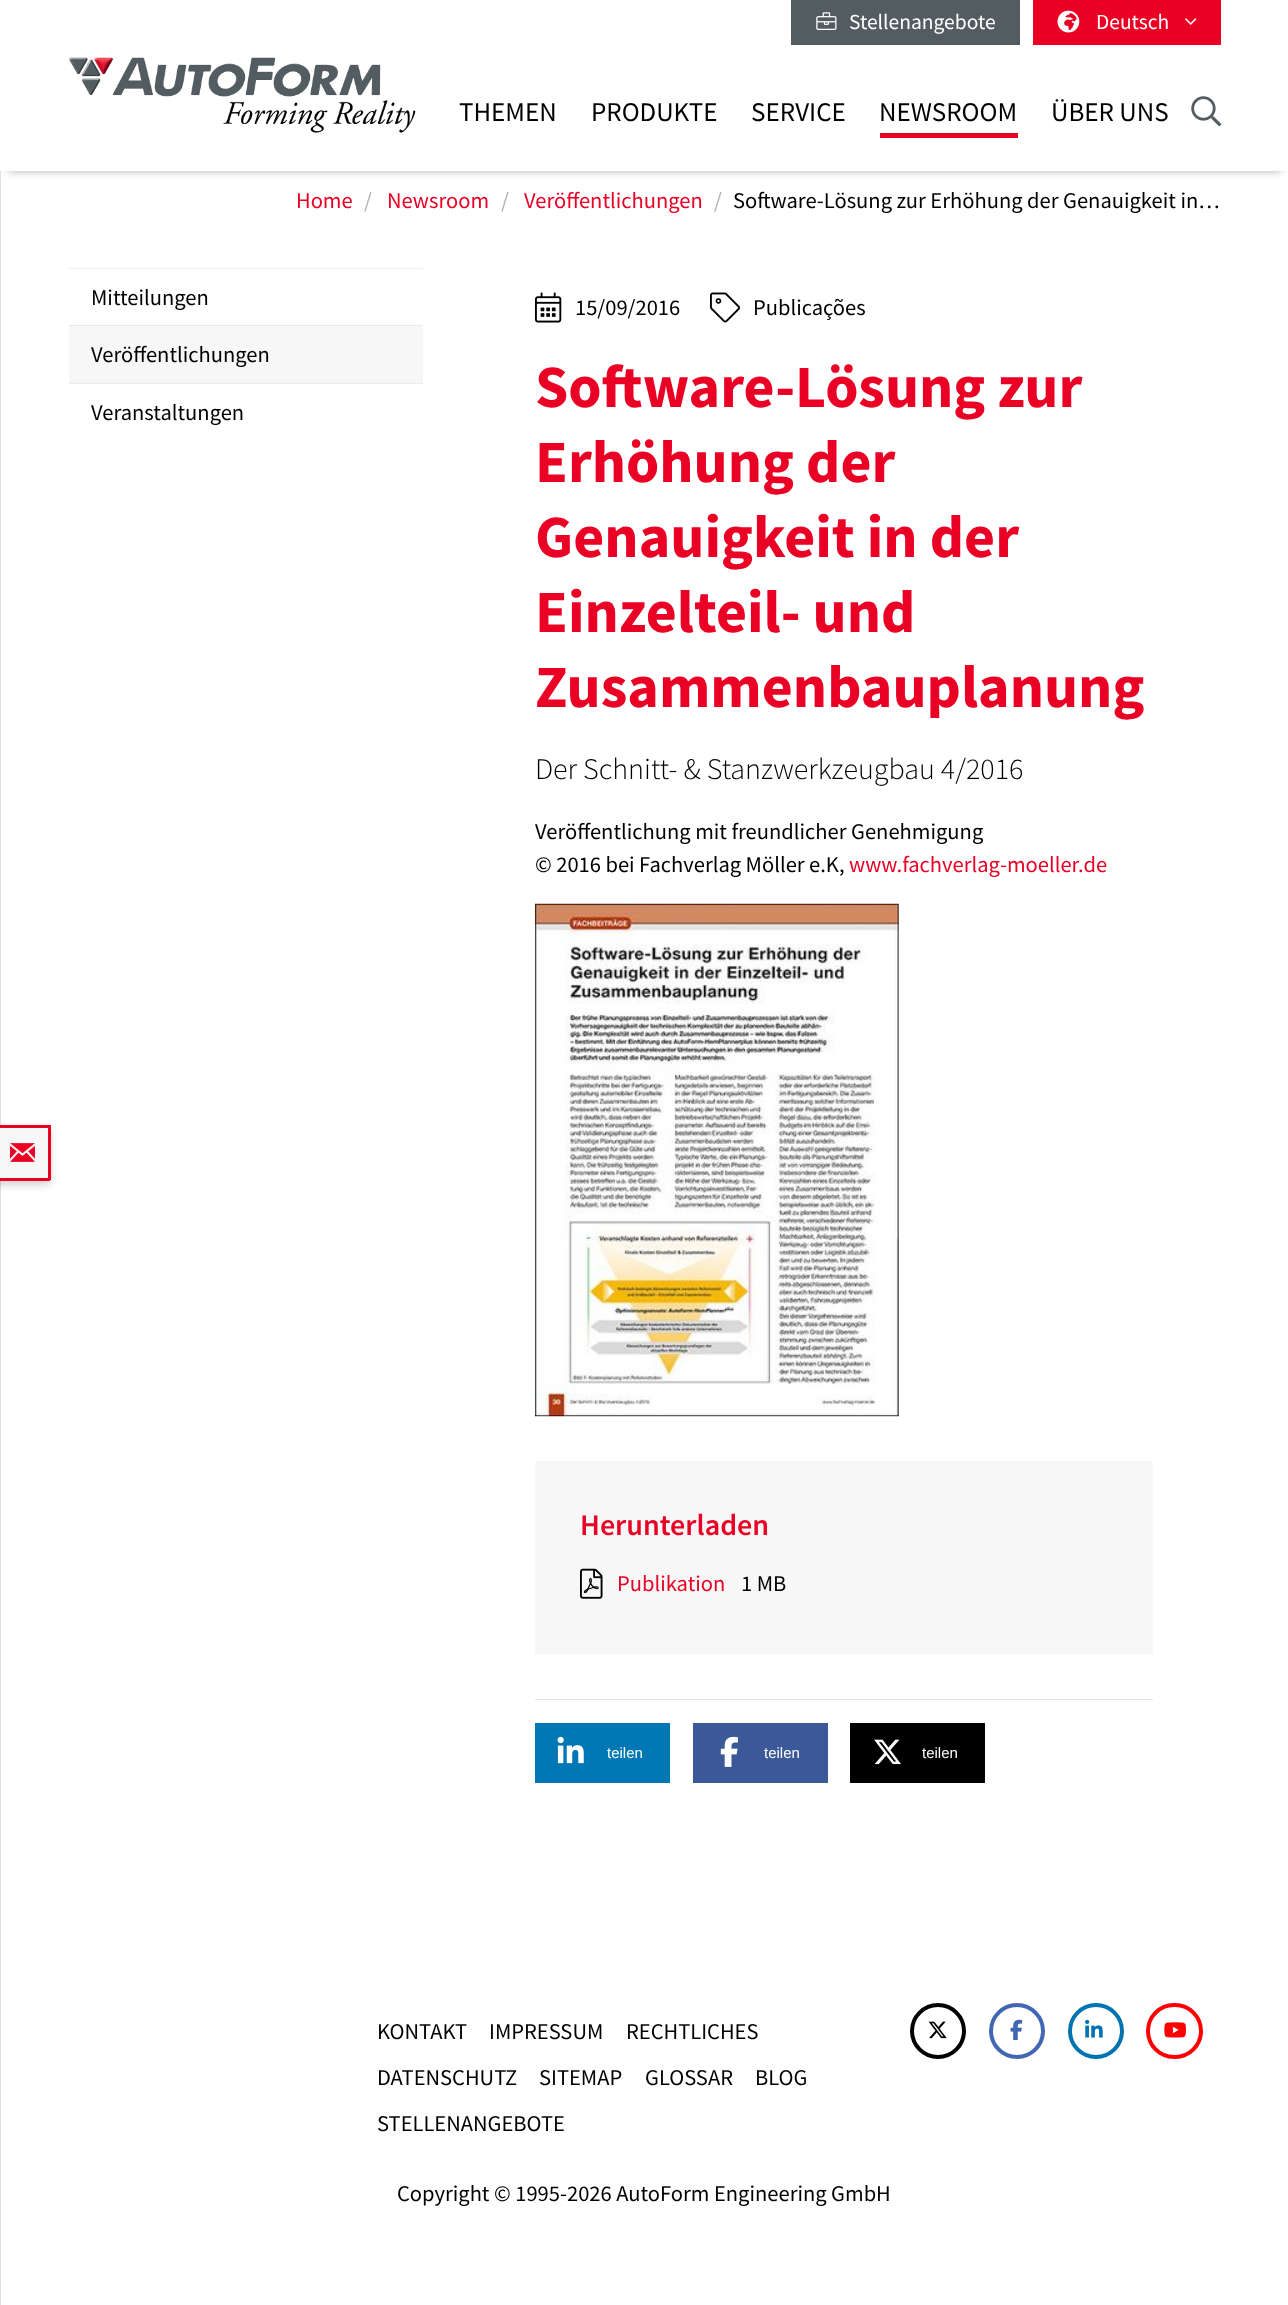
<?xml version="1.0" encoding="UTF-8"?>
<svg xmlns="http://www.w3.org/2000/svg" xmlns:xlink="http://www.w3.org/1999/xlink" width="1288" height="2305">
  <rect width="100%" height="100%" fill="#ffffff" />
  <rect y="171" width="1" height="2134" fill="#dee2e6" />
  <rect x="791" width="229" height="45" fill="#535c61" />
  <image x="816" y="12" width="21" height="18" xlink:href="image1.png" />
  <rect x="1033" width="188" height="45" fill="#e90024" />
  <image x="1057" y="10" width="23" height="23" xlink:href="image2.png" />
  <image x="1185" y="18" width="12" height="7" xlink:href="image3.png" />
  <rect x="8" y="60" width="1273" height="111" fill="#000000" fill-opacity="0.16" filter="blur(4px)" />
  <rect x="8" y="60" width="1273" height="111" fill="#000000" fill-opacity="0.16" filter="blur(4px)" />
  <rect x="1" y="53" width="1287" height="118" fill="#ffffff" />
  <image x="69" y="57" width="347" height="76" xlink:href="image4.png" />
  <rect x="880" y="133" width="138" height="5" fill="#e90024" />
  <image x="1191" y="96" width="31" height="31" xlink:href="image5.png" />
  <rect x="-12" y="1129" width="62" height="55" fill="#000000" fill-opacity="0.1" filter="blur(4px)" />
  <rect x="-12" y="1129" width="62" height="55" fill="#000000" fill-opacity="0.1" filter="blur(4px)" />
  <rect y="1125" width="50" height="3" fill="#e90024" />
  <rect x="48" y="1125" width="3" height="55" fill="#e90024" />
  <rect y="1178" width="50" height="3" fill="#e90024" />
  <rect y="1128" width="48" height="50" fill="#f7f7f7" />
  <image x="10" y="1143" width="25" height="19" xlink:href="image6.png" />
  <rect x="69" y="268" width="354" height="1" fill="#e9ecef" />
  <rect x="69" y="326" width="354" height="57" fill="#f7f7f7" />
  <rect x="69" y="325" width="354" height="1" fill="#e9ecef" />
  <rect x="69" y="383" width="354" height="1" fill="#e9ecef" />
  <image x="535" y="292" width="27" height="31" xlink:href="image7.png" />
  <image x="710" y="292" width="30" height="31" xlink:href="image8.png" />
  <image x="535" y="903" width="364" height="514" xlink:href="image9.png" />
  <rect x="535" y="1461" width="618" height="193" fill="#f7f7f7" />
  <image x="580" y="1568" width="23" height="31" xlink:href="image10.png" />
  <rect x="535" y="1699" width="618" height="1" fill="#e6e6e6" />
  <rect x="535" y="1723" width="135" height="60" fill="#0077b5" />
  <image x="557" y="1736" width="27" height="28" xlink:href="image11.png" />
  <rect x="693" y="1723" width="135" height="60" fill="#3b5998" />
  <image x="720" y="1736" width="18" height="31" xlink:href="image12.png" />
  <rect x="850" y="1723" width="135" height="60" fill="#000000" />
  <image x="874" y="1739" width="27" height="26" xlink:href="image13.png" />
  <circle cx="938" cy="2031" r="26" fill="none" stroke="#000000" stroke-width="4" />
  <image x="928" y="2021" width="19" height="18" xlink:href="image14.png" />
  <circle cx="1017" cy="2031" r="26" fill="none" stroke="#4267b2" stroke-width="4" />
  <image x="1010" y="2019" width="13" height="22" xlink:href="image15.png" />
  <circle cx="1096" cy="2031" r="26" fill="none" stroke="#0073b1" stroke-width="4" />
  <image x="1085" y="2019" width="18" height="19" xlink:href="image16.png" />
  <rect x="1148" y="2005" width="53" height="52" rx="26" fill="none" stroke="#ff0000" stroke-width="4" />
  <image x="1164" y="2022" width="22" height="16" xlink:href="image17.png" />
  <text x="849" y="29" style="font-family: Source Sans Pro; font-size: 21.5px; fill: #ffffff">Stellenangebote</text>
  <text x="1096" y="29" style="font-family: Source Sans Pro; font-size: 21.5px; fill: #ffffff">Deutsch</text>
  <text x="459" y="121" style="font-family: Source Sans Pro; font-size: 27px; fill: #000000">THEMEN</text>
  <text x="591" y="121" style="font-family: Source Sans Pro; font-size: 27px; fill: #000000">PRODUKTE</text>
  <text x="751" y="121" style="font-family: Source Sans Pro; font-size: 27px; fill: #000000">SERVICE</text>
  <text x="879" y="121" style="font-family: Source Sans Pro; font-size: 27px; fill: #000000">NEWSROOM</text>
  <text x="1051" y="121" style="font-family: Source Sans Pro; font-size: 27px; fill: #000000">ÜBER UNS</text>
  <text x="296" y="208" style="font-family: Source Sans Pro; font-size: 22.5px; fill: #e90024">Home</text>
  <text x="364" y="208" style="font-family: Source Sans Pro; font-size: 22.5px; fill: #b0b0b0">/</text>
  <text x="387" y="208" style="font-family: Source Sans Pro; font-size: 22.5px; fill: #e90024">Newsroom</text>
  <text x="501" y="208" style="font-family: Source Sans Pro; font-size: 22.5px; fill: #b0b0b0">/</text>
  <text x="524" y="208" style="font-family: Source Sans Pro; font-size: 22.5px; fill: #e90024">Veröffentlichungen</text>
  <text x="714" y="208" style="font-family: Source Sans Pro; font-size: 22.5px; fill: #b0b0b0">/</text>
  <text x="733" y="208" style="font-family: Source Sans Pro; font-size: 22.5px; fill: #000000">Software-Lösung zur Erhöhung der Genauigkeit in…</text>
  <text x="91" y="305" style="font-family: Source Sans Pro; font-size: 22.5px; fill: #000000">Mitteilungen</text>
  <text x="91" y="362" style="font-family: Source Sans Pro; font-size: 22.5px; fill: #000000">Veröffentlichungen</text>
  <text x="91" y="420" style="font-family: Source Sans Pro; font-size: 22.5px; fill: #000000">Veranstaltungen</text>
  <text x="575" y="315" style="font-family: Source Sans Pro; font-size: 22.5px; fill: #000000">15/09/2016</text>
  <text x="753" y="315" style="font-family: Source Sans Pro; font-size: 22.5px; fill: #000000">Publicações</text>
  <text x="535" y="407" style="font-family: Source Sans Pro; font-size: 60px; font-weight: bold; fill: #e90024">Software-Lösung zur</text>
  <text x="535" y="482" style="font-family: Source Sans Pro; font-size: 60px; font-weight: bold; fill: #e90024">Erhöhung der</text>
  <text x="535" y="557" style="font-family: Source Sans Pro; font-size: 60px; font-weight: bold; fill: #e90024">Genauigkeit in der</text>
  <text x="535" y="632" style="font-family: Source Sans Pro; font-size: 60px; font-weight: bold; fill: #e90024">Einzelteil- und</text>
  <text x="535" y="707" style="font-family: Source Sans Pro; font-size: 60px; font-weight: bold; fill: #e90024">Zusammenbauplanung</text>
  <text x="535" y="779" style="font-family: Source Sans Pro; font-size: 30px; font-weight: 300; fill: #000000">Der Schnitt- &amp; Stanzwerkzeugbau 4/2016</text>
  <text x="535" y="839" style="font-family: Source Sans Pro; font-size: 22.5px; fill: #000000">Veröffentlichung mit freundlicher Genehmigung</text>
  <text x="535" y="872" style="font-family: Source Sans Pro; font-size: 22.5px; fill: #000000">© 2016 bei Fachverlag Möller e.K,</text>
  <text x="849" y="872" style="font-family: Source Sans Pro; font-size: 22.5px; fill: #e90024">www.fachverlag-moeller.de</text>
  <text x="580" y="1535" style="font-family: Source Sans Pro; font-size: 30px; font-weight: 600; fill: #e90024">Herunterladen</text>
  <text x="617" y="1591" style="font-family: Source Sans Pro; font-size: 22.5px; fill: #e90024">Publikation</text>
  <text x="741" y="1591" style="font-family: Source Sans Pro; font-size: 22.5px; fill: #000000">1 MB</text>
  <text x="607" y="1758" style="font-family: Liberation Sans; font-size: 15px; fill: #ffffff">teilen</text>
  <text x="764" y="1758" style="font-family: Liberation Sans; font-size: 15px; fill: #ffffff">teilen</text>
  <text x="922" y="1758" style="font-family: Liberation Sans; font-size: 15px; fill: #ffffff">teilen</text>
  <text x="377" y="2039" style="font-family: Source Sans Pro; font-size: 22.5px; fill: #000000">KONTAKT</text>
  <text x="489" y="2039" style="font-family: Source Sans Pro; font-size: 22.5px; fill: #000000">IMPRESSUM</text>
  <text x="626" y="2039" style="font-family: Source Sans Pro; font-size: 22.5px; fill: #000000">RECHTLICHES</text>
  <text x="377" y="2085" style="font-family: Source Sans Pro; font-size: 22.5px; fill: #000000">DATENSCHUTZ</text>
  <text x="539" y="2085" style="font-family: Source Sans Pro; font-size: 22.5px; fill: #000000">SITEMAP</text>
  <text x="645" y="2085" style="font-family: Source Sans Pro; font-size: 22.5px; fill: #000000">GLOSSAR</text>
  <text x="755" y="2085" style="font-family: Source Sans Pro; font-size: 22.5px; fill: #000000">BLOG</text>
  <text x="377" y="2131" style="font-family: Source Sans Pro; font-size: 22.5px; fill: #000000">STELLENANGEBOTE</text>
  <text x="397" y="2201" style="font-family: Source Sans Pro; font-size: 22.5px; fill: #000000">Copyright © 1995-2026 AutoForm Engineering GmbH</text>
</svg>
